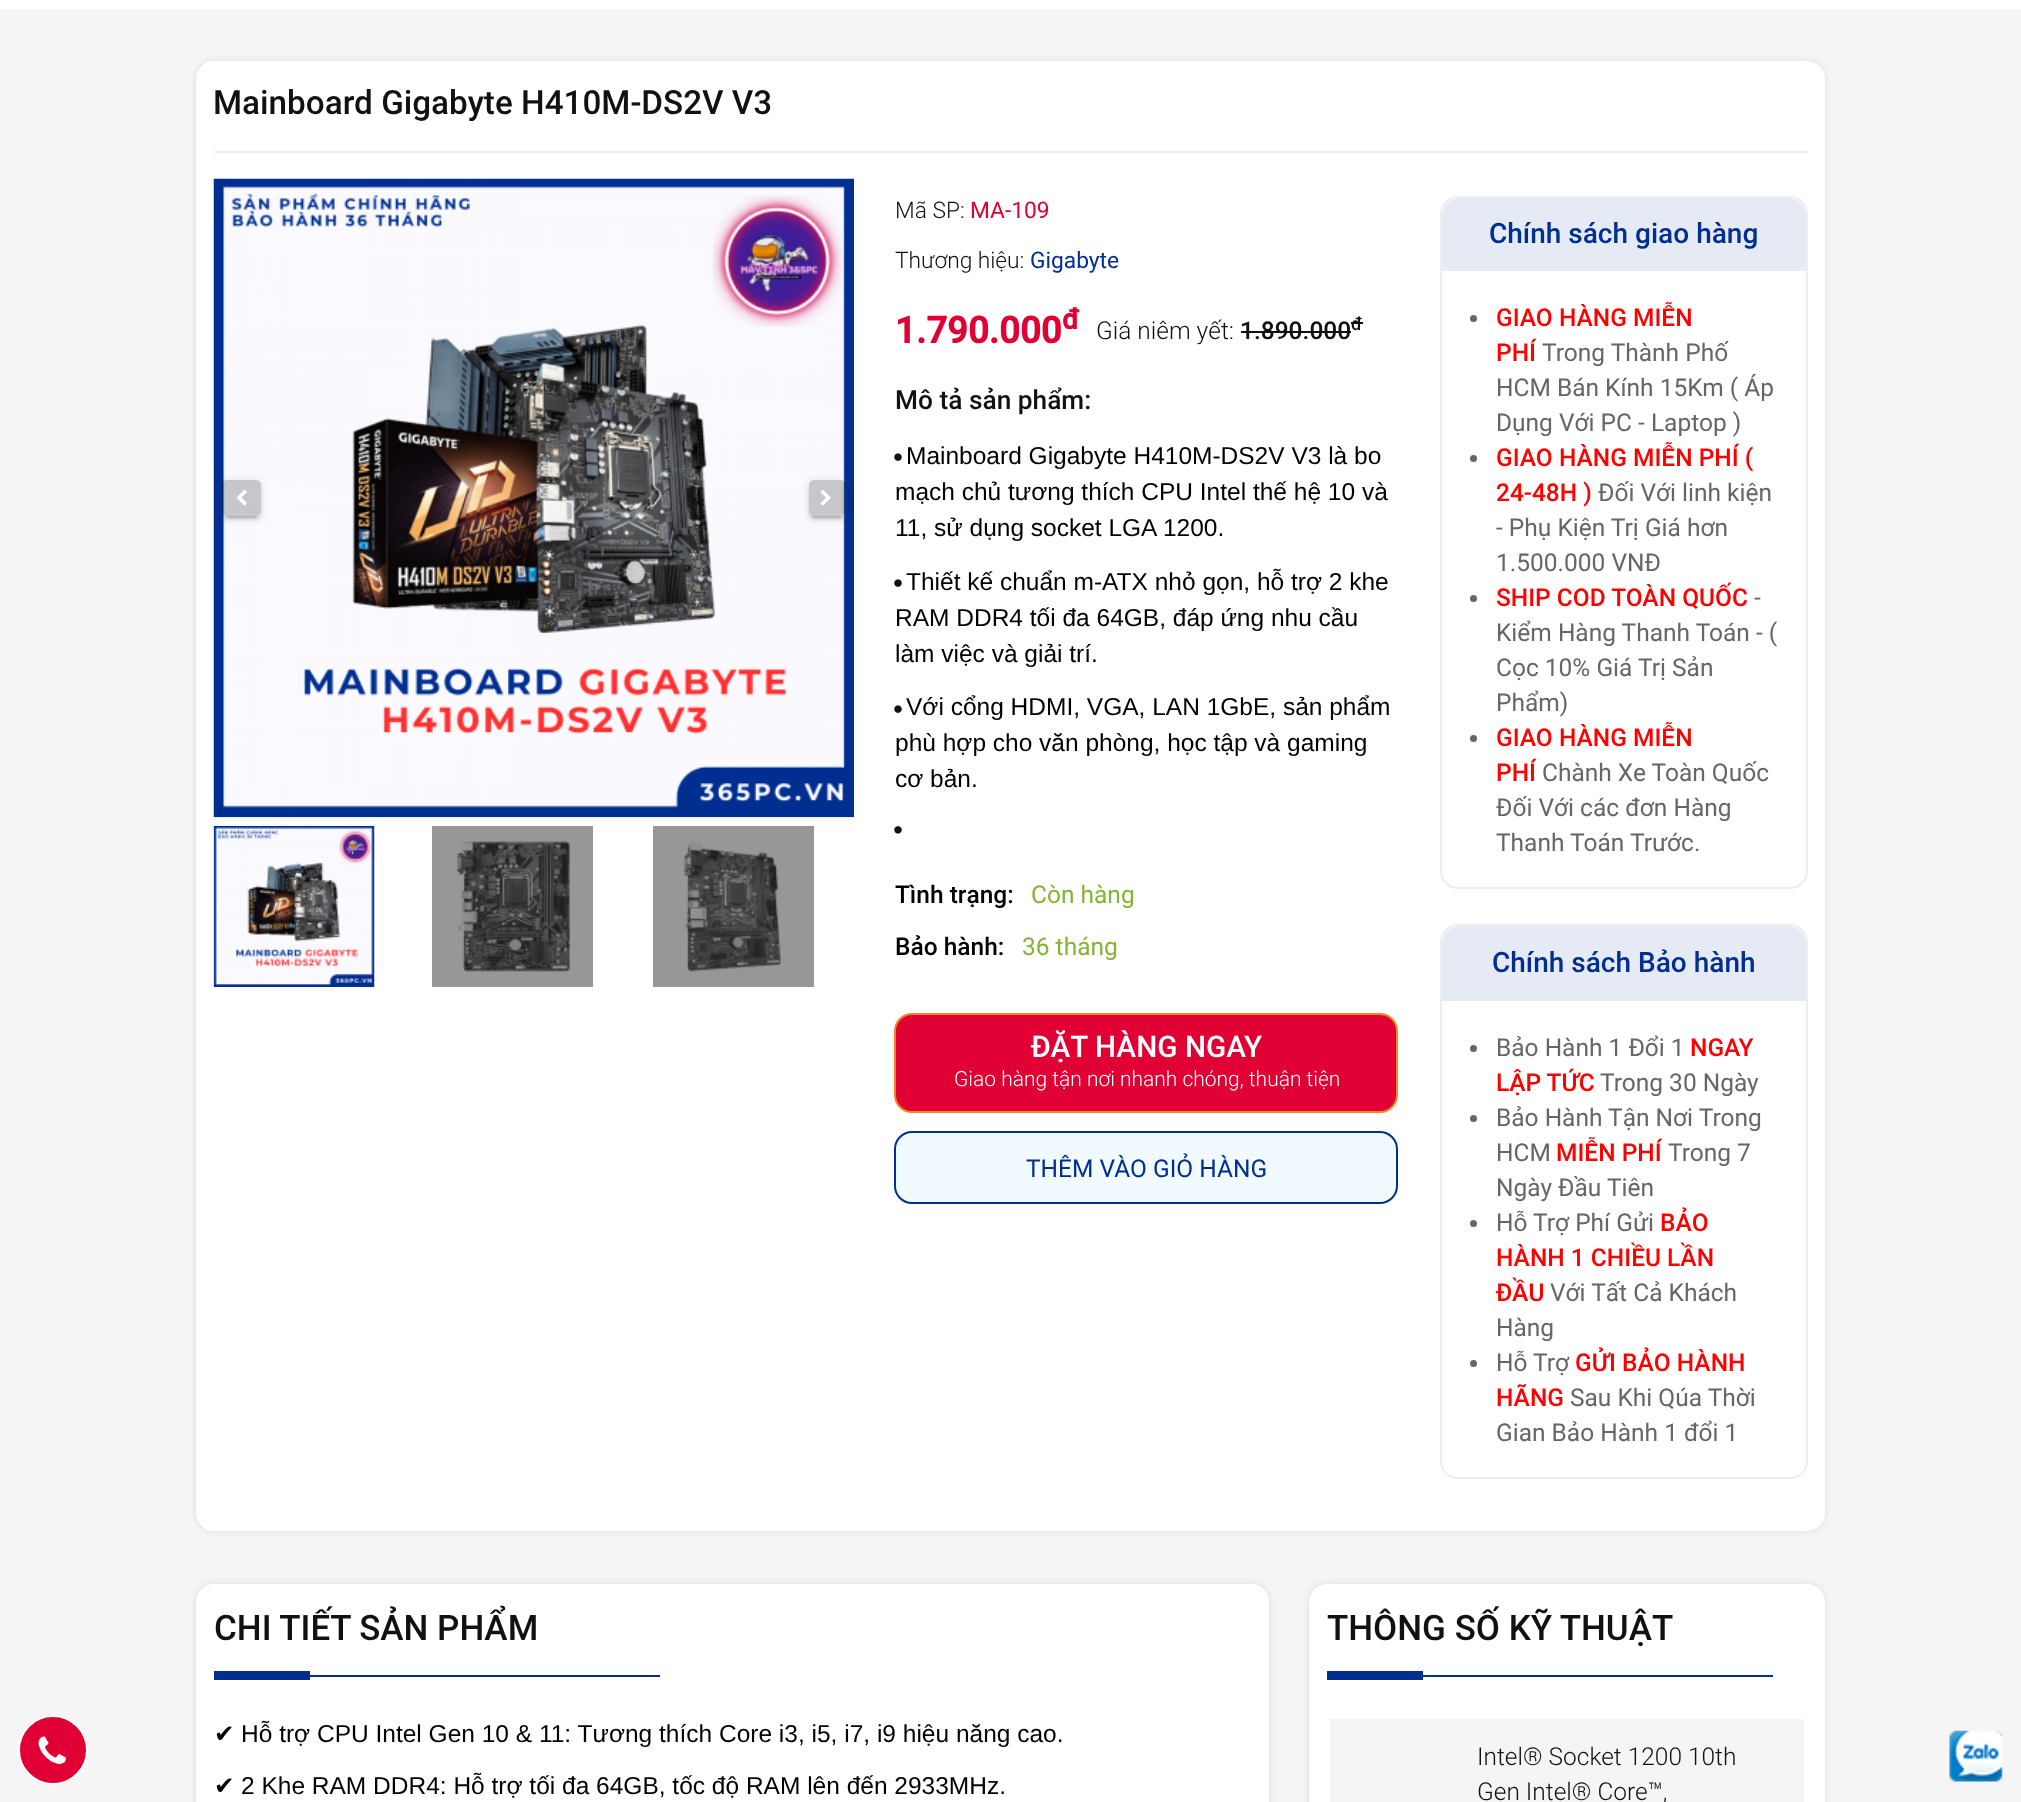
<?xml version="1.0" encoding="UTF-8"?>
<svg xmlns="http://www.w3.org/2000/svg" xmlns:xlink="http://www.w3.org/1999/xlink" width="2021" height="1802">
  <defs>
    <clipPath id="clip1"><path d="M 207 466 h 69 v 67 h -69 z m 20 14 h 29 c 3 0 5 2 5 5 v 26 c 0 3 -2 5 -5 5 h -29 c -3 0 -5 -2 -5 -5 v -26 c 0 -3 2 -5 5 -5 z" clip-rule="evenodd" /></clipPath>
    <clipPath id="clip2"><rect x="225" y="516" width="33" height="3" /></clipPath>
    <clipPath id="clip3"><path d="M 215 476 h 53 v 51 h -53 z m 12 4 h 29 c 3 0 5 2 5 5 v 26 c 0 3 -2 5 -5 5 h -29 c -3 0 -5 -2 -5 -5 v -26 c 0 -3 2 -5 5 -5 z" clip-rule="evenodd" /></clipPath>
    <clipPath id="clip4"><path d="M 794 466 h 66 v 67 h -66 z m 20 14 h 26 c 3 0 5 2 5 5 v 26 c 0 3 -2 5 -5 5 h -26 c -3 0 -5 -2 -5 -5 v -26 c 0 -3 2 -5 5 -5 z" clip-rule="evenodd" /></clipPath>
    <clipPath id="clip5"><rect x="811" y="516" width="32" height="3" /></clipPath>
    <clipPath id="clip6"><path d="M 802 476 h 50 v 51 h -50 z m 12 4 h 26 c 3 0 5 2 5 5 v 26 c 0 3 -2 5 -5 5 h -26 c -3 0 -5 -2 -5 -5 v -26 c 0 -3 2 -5 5 -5 z" clip-rule="evenodd" /></clipPath>
  </defs>
  <rect width="100%" height="100%" fill="#ffffff" />
  <rect y="9" width="2021" height="1793" fill="#f5f5f5" />
  <circle cx="53" cy="1750" r="34" fill="#e10034" stroke="#ffffff" stroke-width="2" />
  <image x="38" y="1736" width="28" height="28" xlink:href="image1.png" />
  <rect x="196" y="61" width="1629" height="1470" rx="18" fill="#000000" fill-opacity="0.1" filter="blur(3.5px)" />
  <rect x="196" y="61" width="1629" height="1470" rx="18" fill="#ffffff" />
  <rect x="653" y="826" width="161" height="161" fill="#979797" />
  <rect x="432" y="826" width="161" height="161" fill="#979797" />
  <rect x="214" y="151" width="1594" height="2" fill="#ededed" />
  <image x="213" y="178" width="641" height="640" xlink:href="image2.png" />
  <g clip-path="url(#clip1)">
    <rect x="222" y="481" width="39" height="37" rx="5" fill="#333333" fill-opacity="0.12" filter="blur(4.5px)" />
  </g>
  <g clip-path="url(#clip2)">
    <rect x="226" y="488" width="31" height="30" rx="2" fill="#333333" fill-opacity="0.2" filter="blur(1px)" />
  </g>
  <g clip-path="url(#clip3)">
    <rect x="222" y="483" width="39" height="37" rx="5" fill="#333333" fill-opacity="0.14" filter="blur(2px)" />
  </g>
  <rect x="222" y="480" width="39" height="36" rx="5" fill="#000000" fill-opacity="0.2" />
  <image x="236" y="489" width="11" height="17" xlink:href="image3.png" />
  <g clip-path="url(#clip4)">
    <rect x="809" y="481" width="36" height="37" rx="5" fill="#333333" fill-opacity="0.12" filter="blur(4.5px)" />
  </g>
  <g clip-path="url(#clip5)">
    <rect x="812" y="488" width="30" height="30" rx="2" fill="#333333" fill-opacity="0.2" filter="blur(1px)" />
  </g>
  <g clip-path="url(#clip6)">
    <rect x="809" y="483" width="36" height="37" rx="5" fill="#333333" fill-opacity="0.14" filter="blur(2px)" />
  </g>
  <rect x="809" y="480" width="36" height="36" rx="5" fill="#000000" fill-opacity="0.2" />
  <image x="820" y="489" width="11" height="17" xlink:href="image4.png" />
  <image x="213" y="826" width="162" height="161" xlink:href="image5.png" />
  <image x="456" y="841" width="114" height="131" xlink:href="image6.png" />
  <image x="683" y="842" width="99" height="130" xlink:href="image7.png" />
  <rect x="1241" y="331" width="110" height="2" fill="#111111" />
  <rect x="1351" y="322" width="12" height="2" fill="#111111" />
  <image x="894" y="453" width="8" height="8" xlink:href="image8.png" />
  <image x="894" y="579" width="8" height="8" xlink:href="image8.png" />
  <image x="894" y="705" width="8" height="8" xlink:href="image8.png" />
  <image x="894" y="826" width="8" height="8" xlink:href="image9.png" />
  <rect x="895" y="1014" width="502" height="98" rx="17" fill="#e10034" stroke="#f48423" stroke-width="2" />
  <rect x="895" y="1132" width="502" height="71" rx="17" fill="#f1fbff" stroke="#002f91" stroke-width="2" />
  <rect x="1441" y="197" width="366" height="691" rx="17" fill="none" stroke="#eeeeee" stroke-width="2" />
  <path d="M 1460 198 h 328 c 10 0 18 8 18 18 v 55 h -364 v -55 c 0 -10 8 -18 18 -18 z" fill="#e5eaf4" />
  <circle cx="1473.5" cy="318.5" r="3.5" fill="#666666" />
  <circle cx="1473.5" cy="458.5" r="3.5" fill="#666666" />
  <circle cx="1473.5" cy="598.5" r="3.5" fill="#666666" />
  <circle cx="1473.5" cy="738.5" r="3.5" fill="#666666" />
  <rect x="1441" y="925" width="366" height="553" rx="17" fill="none" stroke="#eeeeee" stroke-width="2" />
  <path d="M 1460 926 h 328 c 10 0 18 8 18 18 v 57 h -364 v -57 c 0 -10 8 -18 18 -18 z" fill="#e5eaf4" />
  <circle cx="1473.5" cy="1048.5" r="3.5" fill="#666666" />
  <circle cx="1473.5" cy="1118.5" r="3.5" fill="#666666" />
  <circle cx="1473.5" cy="1223.5" r="3.5" fill="#666666" />
  <circle cx="1473.5" cy="1363.5" r="3.5" fill="#666666" />
  <rect x="196" y="1584" width="1073" height="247" rx="18" fill="#000000" fill-opacity="0.1" filter="blur(3.5px)" />
  <rect x="196" y="1584" width="1073" height="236" rx="18" fill="#ffffff" />
  <rect x="214" y="1671" width="96" height="9" fill="#002f91" />
  <rect x="310" y="1675" width="350" height="2" fill="#002f91" />
  <rect x="1309" y="1584" width="516" height="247" rx="18" fill="#000000" fill-opacity="0.1" filter="blur(3.5px)" />
  <rect x="1309" y="1584" width="516" height="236" rx="18" fill="#ffffff" />
  <rect x="1327" y="1671" width="96" height="9" fill="#002f91" />
  <rect x="1423" y="1675" width="350" height="2" fill="#002f91" />
  <rect x="1330" y="1719" width="474" height="83" fill="#f5f5f5" />
  <image x="1949" y="1730" width="54" height="52" xlink:href="image10.png" />
  <text x="213" y="114" style="font-family: Roboto; font-size: 33.25px; font-weight: 500; fill: #111111">Mainboard Gigabyte H410M-DS2V V3</text>
  <text x="895" y="218" style="font-family: Roboto; font-size: 22.75px; font-weight: 300; fill: #111111">Mã SP:</text>
  <text x="970" y="218" style="font-family: Roboto; font-size: 22.75px; fill: #e10034">MA-109</text>
  <text x="895" y="268" style="font-family: Roboto; font-size: 22.75px; font-weight: 300; fill: #111111">Thương hiệu:</text>
  <text x="1030" y="268" style="font-family: Roboto; font-size: 22.75px; fill: #002f91">Gigabyte</text>
  <text x="895" y="343" style="font-family: Roboto; font-size: 36.75px; font-weight: bold; fill: #e10034">1.790.000</text>
  <text x="1062" y="329" style="font-family: Roboto; font-size: 28px; font-weight: bold; fill: #e10034">đ</text>
  <text x="1096" y="339" style="font-family: Roboto; font-size: 24.5px; font-weight: 300; fill: #111111">Giá niêm yết:</text>
  <text x="1240" y="339" style="font-family: Roboto; font-size: 24.5px; font-weight: 500; fill: #111111">1.890.000</text>
  <text x="1351" y="330" style="font-family: Roboto; font-size: 18px; font-weight: 500; fill: #111111">đ</text>
  <text x="895" y="409" style="font-family: Roboto; font-size: 26.25px; font-weight: 500; fill: #111111">Mô tả sản phẩm:</text>
  <text x="906" y="464" style="font-family: Liberation Sans; font-size: 24.5px; fill: #000000">Mainboard Gigabyte H410M-DS2V V3 là bo</text>
  <text x="895" y="500" style="font-family: Liberation Sans; font-size: 24.5px; fill: #000000">mạch chủ tương thích CPU Intel thế hệ 10 và</text>
  <text x="895" y="536" style="font-family: Liberation Sans; font-size: 24.5px; fill: #000000">11, sử dụng socket LGA 1200.</text>
  <text x="906" y="590" style="font-family: Liberation Sans; font-size: 24.5px; fill: #000000">Thiết kế chuẩn m-ATX nhỏ gọn, hỗ trợ 2 khe</text>
  <text x="895" y="626" style="font-family: Liberation Sans; font-size: 24.5px; fill: #000000">RAM DDR4 tối đa 64GB, đáp ứng nhu cầu</text>
  <text x="895" y="662" style="font-family: Liberation Sans; font-size: 24.5px; fill: #000000">làm việc và giải trí.</text>
  <text x="906" y="715" style="font-family: Liberation Sans; font-size: 24.5px; fill: #000000">Với cổng HDMI, VGA, LAN 1GbE, sản phẩm</text>
  <text x="895" y="751" style="font-family: Liberation Sans; font-size: 24.5px; fill: #000000">phù hợp cho văn phòng, học tập và gaming</text>
  <text x="895" y="787" style="font-family: Liberation Sans; font-size: 24.5px; fill: #000000">cơ bản.</text>
  <text x="895" y="903" style="font-family: Roboto; font-size: 24.5px; font-weight: 500; fill: #000000">Tình trạng:</text>
  <text x="1031" y="903" style="font-family: Roboto; font-size: 24.5px; fill: #85b333">Còn hàng</text>
  <text x="895" y="955" style="font-family: Roboto; font-size: 24.5px; font-weight: 500; fill: #000000">Bảo hành:</text>
  <text x="1022" y="955" style="font-family: Roboto; font-size: 24.5px; fill: #85b333">36 tháng</text>
  <text x="1031" y="1057" style="font-family: Roboto; font-size: 29.75px; font-weight: 500; fill: #ffffff">ĐẶT HÀNG NGAY</text>
  <text x="954" y="1086" style="font-family: Roboto; font-size: 21px; font-weight: 300; fill: #ffffff">Giao hàng tận nơi nhanh chóng, thuận tiện</text>
  <text x="1026" y="1177" style="font-family: Roboto; font-size: 24.5px; fill: #002f91">THÊM VÀO GIỎ HÀNG</text>
  <text x="1489" y="243" style="font-family: Roboto; font-size: 28px; font-weight: 500; fill: #002f91">Chính sách giao hàng</text>
  <text x="1496" y="326" style="font-family: Roboto; font-size: 24.5px; font-weight: 500; fill: #ff0000">GIAO HÀNG MIỄN</text>
  <text x="1496" y="361" style="font-family: Roboto; font-size: 24.5px; font-weight: 500; fill: #ff0000">PHÍ</text>
  <text x="1542" y="361" style="font-family: Roboto; font-size: 24.5px; fill: #666666">Trong Thành Phố</text>
  <text x="1496" y="396" style="font-family: Roboto; font-size: 24.5px; fill: #666666">HCM Bán Kính 15Km ( Áp</text>
  <text x="1496" y="431" style="font-family: Roboto; font-size: 24.5px; fill: #666666">Dụng Với PC - Laptop )</text>
  <text x="1496" y="466" style="font-family: Roboto; font-size: 24.5px; font-weight: 500; fill: #ff0000">GIAO HÀNG MIỄN PHÍ (</text>
  <text x="1496" y="501" style="font-family: Roboto; font-size: 24.5px; font-weight: 500; fill: #ff0000">24-48H )</text>
  <text x="1598" y="501" style="font-family: Roboto; font-size: 24.5px; fill: #666666">Đối Với linh kiện</text>
  <text x="1496" y="536" style="font-family: Roboto; font-size: 24.5px; fill: #666666">- Phụ Kiện Trị Giá hơn</text>
  <text x="1496" y="571" style="font-family: Roboto; font-size: 24.5px; fill: #666666">1.500.000 VNĐ</text>
  <text x="1496" y="606" style="font-family: Roboto; font-size: 24.5px; font-weight: 500; fill: #ff0000">SHIP COD TOÀN QUỐC</text>
  <text x="1754" y="606" style="font-family: Roboto; font-size: 24.5px; fill: #666666">-</text>
  <text x="1496" y="641" style="font-family: Roboto; font-size: 24.5px; fill: #666666">Kiểm Hàng Thanh Toán - (</text>
  <text x="1496" y="676" style="font-family: Roboto; font-size: 24.5px; fill: #666666">Cọc 10% Giá Trị Sản</text>
  <text x="1496" y="711" style="font-family: Roboto; font-size: 24.5px; fill: #666666">Phẩm)</text>
  <text x="1496" y="746" style="font-family: Roboto; font-size: 24.5px; font-weight: 500; fill: #ff0000">GIAO HÀNG MIỄN</text>
  <text x="1496" y="781" style="font-family: Roboto; font-size: 24.5px; font-weight: 500; fill: #ff0000">PHÍ</text>
  <text x="1542" y="781" style="font-family: Roboto; font-size: 24.5px; fill: #666666">Chành Xe Toàn Quốc</text>
  <text x="1496" y="816" style="font-family: Roboto; font-size: 24.5px; fill: #666666">Đối Với các đơn Hàng</text>
  <text x="1496" y="851" style="font-family: Roboto; font-size: 24.5px; fill: #666666">Thanh Toán Trước.</text>
  <text x="1492" y="972" style="font-family: Roboto; font-size: 28px; font-weight: 500; fill: #002f91">Chính sách Bảo hành</text>
  <text x="1496" y="1056" style="font-family: Roboto; font-size: 24.5px; fill: #666666">Bảo Hành 1 Đổi 1</text>
  <text x="1690" y="1056" style="font-family: Roboto; font-size: 24.5px; font-weight: 500; fill: #ff0000">NGAY</text>
  <text x="1496" y="1091" style="font-family: Roboto; font-size: 24.5px; font-weight: 500; fill: #ff0000">LẬP TỨC</text>
  <text x="1600" y="1091" style="font-family: Roboto; font-size: 24.5px; fill: #666666">Trong 30 Ngày</text>
  <text x="1496" y="1126" style="font-family: Roboto; font-size: 24.5px; fill: #666666">Bảo Hành Tận Nơi Trong</text>
  <text x="1496" y="1161" style="font-family: Roboto; font-size: 24.5px; fill: #666666">HCM</text>
  <text x="1556" y="1161" style="font-family: Roboto; font-size: 24.5px; font-weight: 500; fill: #ff0000">MIỄN PHÍ</text>
  <text x="1668" y="1161" style="font-family: Roboto; font-size: 24.5px; fill: #666666">Trong 7</text>
  <text x="1496" y="1196" style="font-family: Roboto; font-size: 24.5px; fill: #666666">Ngày Đầu Tiên</text>
  <text x="1496" y="1231" style="font-family: Roboto; font-size: 24.5px; fill: #666666">Hỗ Trợ Phí Gửi</text>
  <text x="1660" y="1231" style="font-family: Roboto; font-size: 24.5px; font-weight: 500; fill: #ff0000">BẢO</text>
  <text x="1496" y="1266" style="font-family: Roboto; font-size: 24.5px; font-weight: 500; fill: #ff0000">HÀNH 1 CHIỀU LẦN</text>
  <text x="1496" y="1301" style="font-family: Roboto; font-size: 24.5px; font-weight: 500; fill: #ff0000">ĐẦU</text>
  <text x="1550" y="1301" style="font-family: Roboto; font-size: 24.5px; fill: #666666">Với Tất Cả Khách</text>
  <text x="1496" y="1336" style="font-family: Roboto; font-size: 24.5px; fill: #666666">Hàng</text>
  <text x="1496" y="1371" style="font-family: Roboto; font-size: 24.5px; fill: #666666">Hỗ Trợ</text>
  <text x="1575" y="1371" style="font-family: Roboto; font-size: 24.5px; font-weight: 500; fill: #ff0000">GỬI BẢO HÀNH</text>
  <text x="1496" y="1406" style="font-family: Roboto; font-size: 24.5px; font-weight: 500; fill: #ff0000">HÃNG</text>
  <text x="1570" y="1406" style="font-family: Roboto; font-size: 24.5px; fill: #666666">Sau Khi Qúa Thời</text>
  <text x="1496" y="1441" style="font-family: Roboto; font-size: 24.5px; fill: #666666">Gian Bảo Hành 1 đổi 1</text>
  <text x="214" y="1640" style="font-family: Roboto; font-size: 35px; font-weight: 500; fill: #111111">CHI TIẾT SẢN PHẨM</text>
  <text x="214" y="1742" style="font-family: DejaVu Sans; font-size: 24.5px; fill: #000000">✔</text>
  <text x="241" y="1742" style="font-family: Liberation Sans; font-size: 24.5px; fill: #000000">Hỗ trợ CPU Intel Gen 10 &amp; 11: Tương thích Core i3, i5, i7, i9 hiệu năng cao.</text>
  <text x="214" y="1794" style="font-family: DejaVu Sans; font-size: 24.5px; fill: #000000">✔</text>
  <text x="241" y="1794" style="font-family: Liberation Sans; font-size: 24.5px; fill: #000000">2 Khe RAM DDR4: Hỗ trợ tối đa 64GB, tốc độ RAM lên đến 2933MHz.</text>
  <text x="1327" y="1640" style="font-family: Roboto; font-size: 35px; font-weight: 500; fill: #111111">THÔNG SỐ KỸ THUẬT</text>
  <text x="1477" y="1765" style="font-family: Roboto; font-size: 24.5px; font-weight: 300; fill: #111111">Intel® Socket 1200 10th</text>
  <text x="1477" y="1800" style="font-family: Roboto; font-size: 24.5px; font-weight: 300; fill: #111111">Gen Intel® Core™,</text>
</svg>
